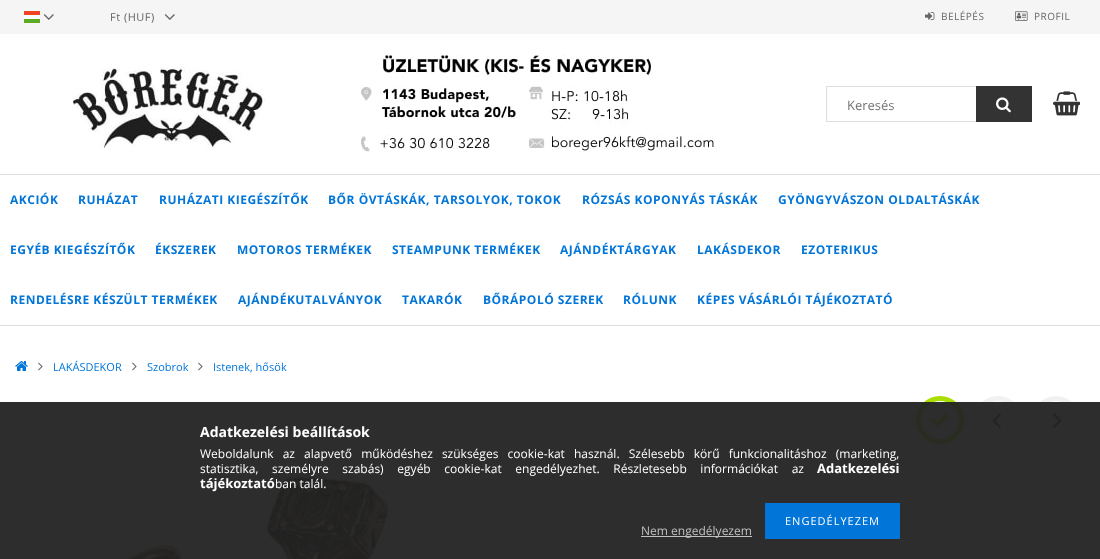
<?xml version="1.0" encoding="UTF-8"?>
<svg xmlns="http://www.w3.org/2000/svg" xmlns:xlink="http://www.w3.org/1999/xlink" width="1100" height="559">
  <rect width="100%" height="100%" fill="#ffffff" />
  <rect width="1100" height="34" fill="#f5f5f5" />
  <image x="24" y="11" width="16" height="12" xlink:href="image1.png" />
  <image x="43" y="14" width="11" height="6" xlink:href="image2.png" />
  <image x="164" y="14" width="11" height="6" xlink:href="image2.png" />
  <image x="925" y="12" width="10" height="8" xlink:href="image3.png" />
  <image x="1015" y="11" width="13" height="10" xlink:href="image4.png" />
  <image x="71" y="64" width="194" height="86" xlink:href="image5.png" />
  <image x="361" y="54" width="354" height="98" xlink:href="image6.png" />
  <rect x="826.5" y="86.5" width="205" height="35" fill="none" stroke="#dddddd" />
  <rect x="976" y="86" width="56" height="36" fill="#333333" />
  <image x="996" y="97" width="15" height="16" xlink:href="image7.png" />
  <image x="1053" y="91" width="27" height="25" xlink:href="image8.png" />
  <rect y="174" width="1100" height="1" fill="#dddddd" />
  <rect y="325" width="1100" height="1" fill="#dddddd" />
  <image x="15" y="361" width="13" height="10" xlink:href="image9.png" />
  <image x="38" y="362" width="5" height="9" xlink:href="image10.png" />
  <image x="132" y="362" width="5" height="9" xlink:href="image10.png" />
  <image x="198" y="362" width="5" height="9" xlink:href="image10.png" />
  <rect x="15" y="454" width="1070" height="1" fill="#dddddd" />
  <circle cx="940" cy="420" r="21.5" fill="none" stroke="#aadd00" stroke-width="5" />
  <image x="931" y="413" width="18" height="14" xlink:href="image11.png" />
  <circle cx="998" cy="420" r="21.5" fill="none" stroke="#f1f1f1" stroke-width="5" />
  <image x="992" y="413" width="9" height="15" xlink:href="image12.png" />
  <circle cx="1056" cy="420" r="21.5" fill="none" stroke="#f1f1f1" stroke-width="5" />
  <image x="1053" y="413" width="9" height="15" xlink:href="image13.png" />
  <image x="121" y="475" width="274" height="84" xlink:href="image14.png" />
  <rect y="402" width="1100" height="157" fill="#222222" fill-opacity="0.95" />
  <rect x="765" y="503" width="135" height="36" fill="#0275d8" />
  <rect x="641" y="536" width="111" height="1" fill="#ffffff" fill-opacity="0.7" />
  <text x="110" y="21" style="font-family: Open Sans; font-size: 11px; letter-spacing: 0.5px; fill: #666666">Ft (HUF)</text>
  <text x="941" y="20" style="font-family: Open Sans; font-size: 10px; letter-spacing: 0.5px; fill: #666666">BELÉPÉS</text>
  <text x="1034" y="20" style="font-family: Open Sans; font-size: 10px; letter-spacing: 0.5px; fill: #666666">PROFIL</text>
  <text x="847" y="110" style="font-family: Open Sans; font-size: 13px; fill: #757575">Keresés</text>
  <text x="10" y="204" style="font-family: Open Sans; font-size: 12px; font-weight: bold; letter-spacing: 0.5px; fill: #0275d8">AKCIÓK</text>
  <text x="78" y="204" style="font-family: Open Sans; font-size: 12px; font-weight: bold; letter-spacing: 0.5px; fill: #0275d8">RUHÁZAT</text>
  <text x="159" y="204" style="font-family: Open Sans; font-size: 12px; font-weight: bold; letter-spacing: 0.5px; fill: #0275d8">RUHÁZATI KIEGÉSZÍTŐK</text>
  <text x="328" y="204" style="font-family: Open Sans; font-size: 12px; font-weight: bold; letter-spacing: 0.5px; fill: #0275d8">BŐR ÖVTÁSKÁK, TARSOLYOK, TOKOK</text>
  <text x="582" y="204" style="font-family: Open Sans; font-size: 12px; font-weight: bold; letter-spacing: 0.5px; fill: #0275d8">RÓZSÁS KOPONYÁS TÁSKÁK</text>
  <text x="778" y="204" style="font-family: Open Sans; font-size: 12px; font-weight: bold; letter-spacing: 0.5px; fill: #0275d8">GYÖNGYVÁSZON OLDALTÁSKÁK</text>
  <text x="10" y="254" style="font-family: Open Sans; font-size: 12px; font-weight: bold; letter-spacing: 0.5px; fill: #0275d8">EGYÉB KIEGÉSZÍTŐK</text>
  <text x="155" y="254" style="font-family: Open Sans; font-size: 12px; font-weight: bold; letter-spacing: 0.5px; fill: #0275d8">ÉKSZEREK</text>
  <text x="237" y="254" style="font-family: Open Sans; font-size: 12px; font-weight: bold; letter-spacing: 0.5px; fill: #0275d8">MOTOROS TERMÉKEK</text>
  <text x="392" y="254" style="font-family: Open Sans; font-size: 12px; font-weight: bold; letter-spacing: 0.5px; fill: #0275d8">STEAMPUNK TERMÉKEK</text>
  <text x="560" y="254" style="font-family: Open Sans; font-size: 12px; font-weight: bold; letter-spacing: 0.5px; fill: #0275d8">AJÁNDÉKTÁRGYAK</text>
  <text x="697" y="254" style="font-family: Open Sans; font-size: 12px; font-weight: bold; letter-spacing: 0.5px; fill: #0275d8">LAKÁSDEKOR</text>
  <text x="801" y="254" style="font-family: Open Sans; font-size: 12px; font-weight: bold; letter-spacing: 0.5px; fill: #0275d8">EZOTERIKUS</text>
  <text x="10" y="304" style="font-family: Open Sans; font-size: 12px; font-weight: bold; letter-spacing: 0.5px; fill: #0275d8">RENDELÉSRE KÉSZÜLT TERMÉKEK</text>
  <text x="238" y="304" style="font-family: Open Sans; font-size: 12px; font-weight: bold; letter-spacing: 0.5px; fill: #0275d8">AJÁNDÉKUTALVÁNYOK</text>
  <text x="402" y="304" style="font-family: Open Sans; font-size: 12px; font-weight: bold; letter-spacing: 0.5px; fill: #0275d8">TAKARÓK</text>
  <text x="483" y="304" style="font-family: Open Sans; font-size: 12px; font-weight: bold; letter-spacing: 0.5px; fill: #0275d8">BŐRÁPOLÓ SZEREK</text>
  <text x="623" y="304" style="font-family: Open Sans; font-size: 12px; font-weight: bold; letter-spacing: 0.5px; fill: #0275d8">RÓLUNK</text>
  <text x="697" y="304" style="font-family: Open Sans; font-size: 12px; font-weight: bold; letter-spacing: 0.5px; fill: #0275d8">KÉPES VÁSÁRLÓI TÁJÉKOZTATÓ</text>
  <text x="53" y="371" style="font-family: Open Sans; font-size: 11px; fill: #0275d8">LAKÁSDEKOR</text>
  <text x="147" y="371" style="font-family: Open Sans; font-size: 11px; fill: #0275d8">Szobrok</text>
  <text x="213" y="371" style="font-family: Open Sans; font-size: 11px; fill: #0275d8">Istenek, hősök</text>
  <text x="200" y="437" style="font-family: Open Sans; font-size: 14px; font-weight: bold; fill: #ffffff">Adatkezelési beállítások</text>
  <text x="200" y="458" word-spacing="6" style="font-family: Open Sans; font-size: 12px; fill: #ffffff">Weboldalunk az alapvető működéshez szükséges cookie-kat használ. Szélesebb körű funkcionalitáshoz (marketing,</text>
  <text x="200" y="473" word-spacing="10.5" style="font-family: Open Sans; font-size: 12px; fill: #ffffff">statisztika, személyre szabás) egyéb cookie-kat engedélyezhet. Részletesebb információkat az</text>
  <text x="817" y="473" style="font-family: Open Sans; font-size: 13px; font-weight: bold; fill: #ffffff">Adatkezelési</text>
  <text x="200" y="488" style="font-family: Open Sans; font-size: 13px; font-weight: bold; fill: #ffffff">tájékoztató</text>
  <text x="275" y="488" style="font-family: Open Sans; font-size: 12px; fill: #ffffff">ban talál.</text>
  <text x="785" y="525" style="font-family: Open Sans; font-size: 11px; letter-spacing: 1px; fill: #ffffff">ENGEDÉLYEZEM</text>
  <text x="641" y="535" style="font-family: Open Sans; font-size: 12px; fill: #c0c0c0">Nem engedélyezem</text>
</svg>
